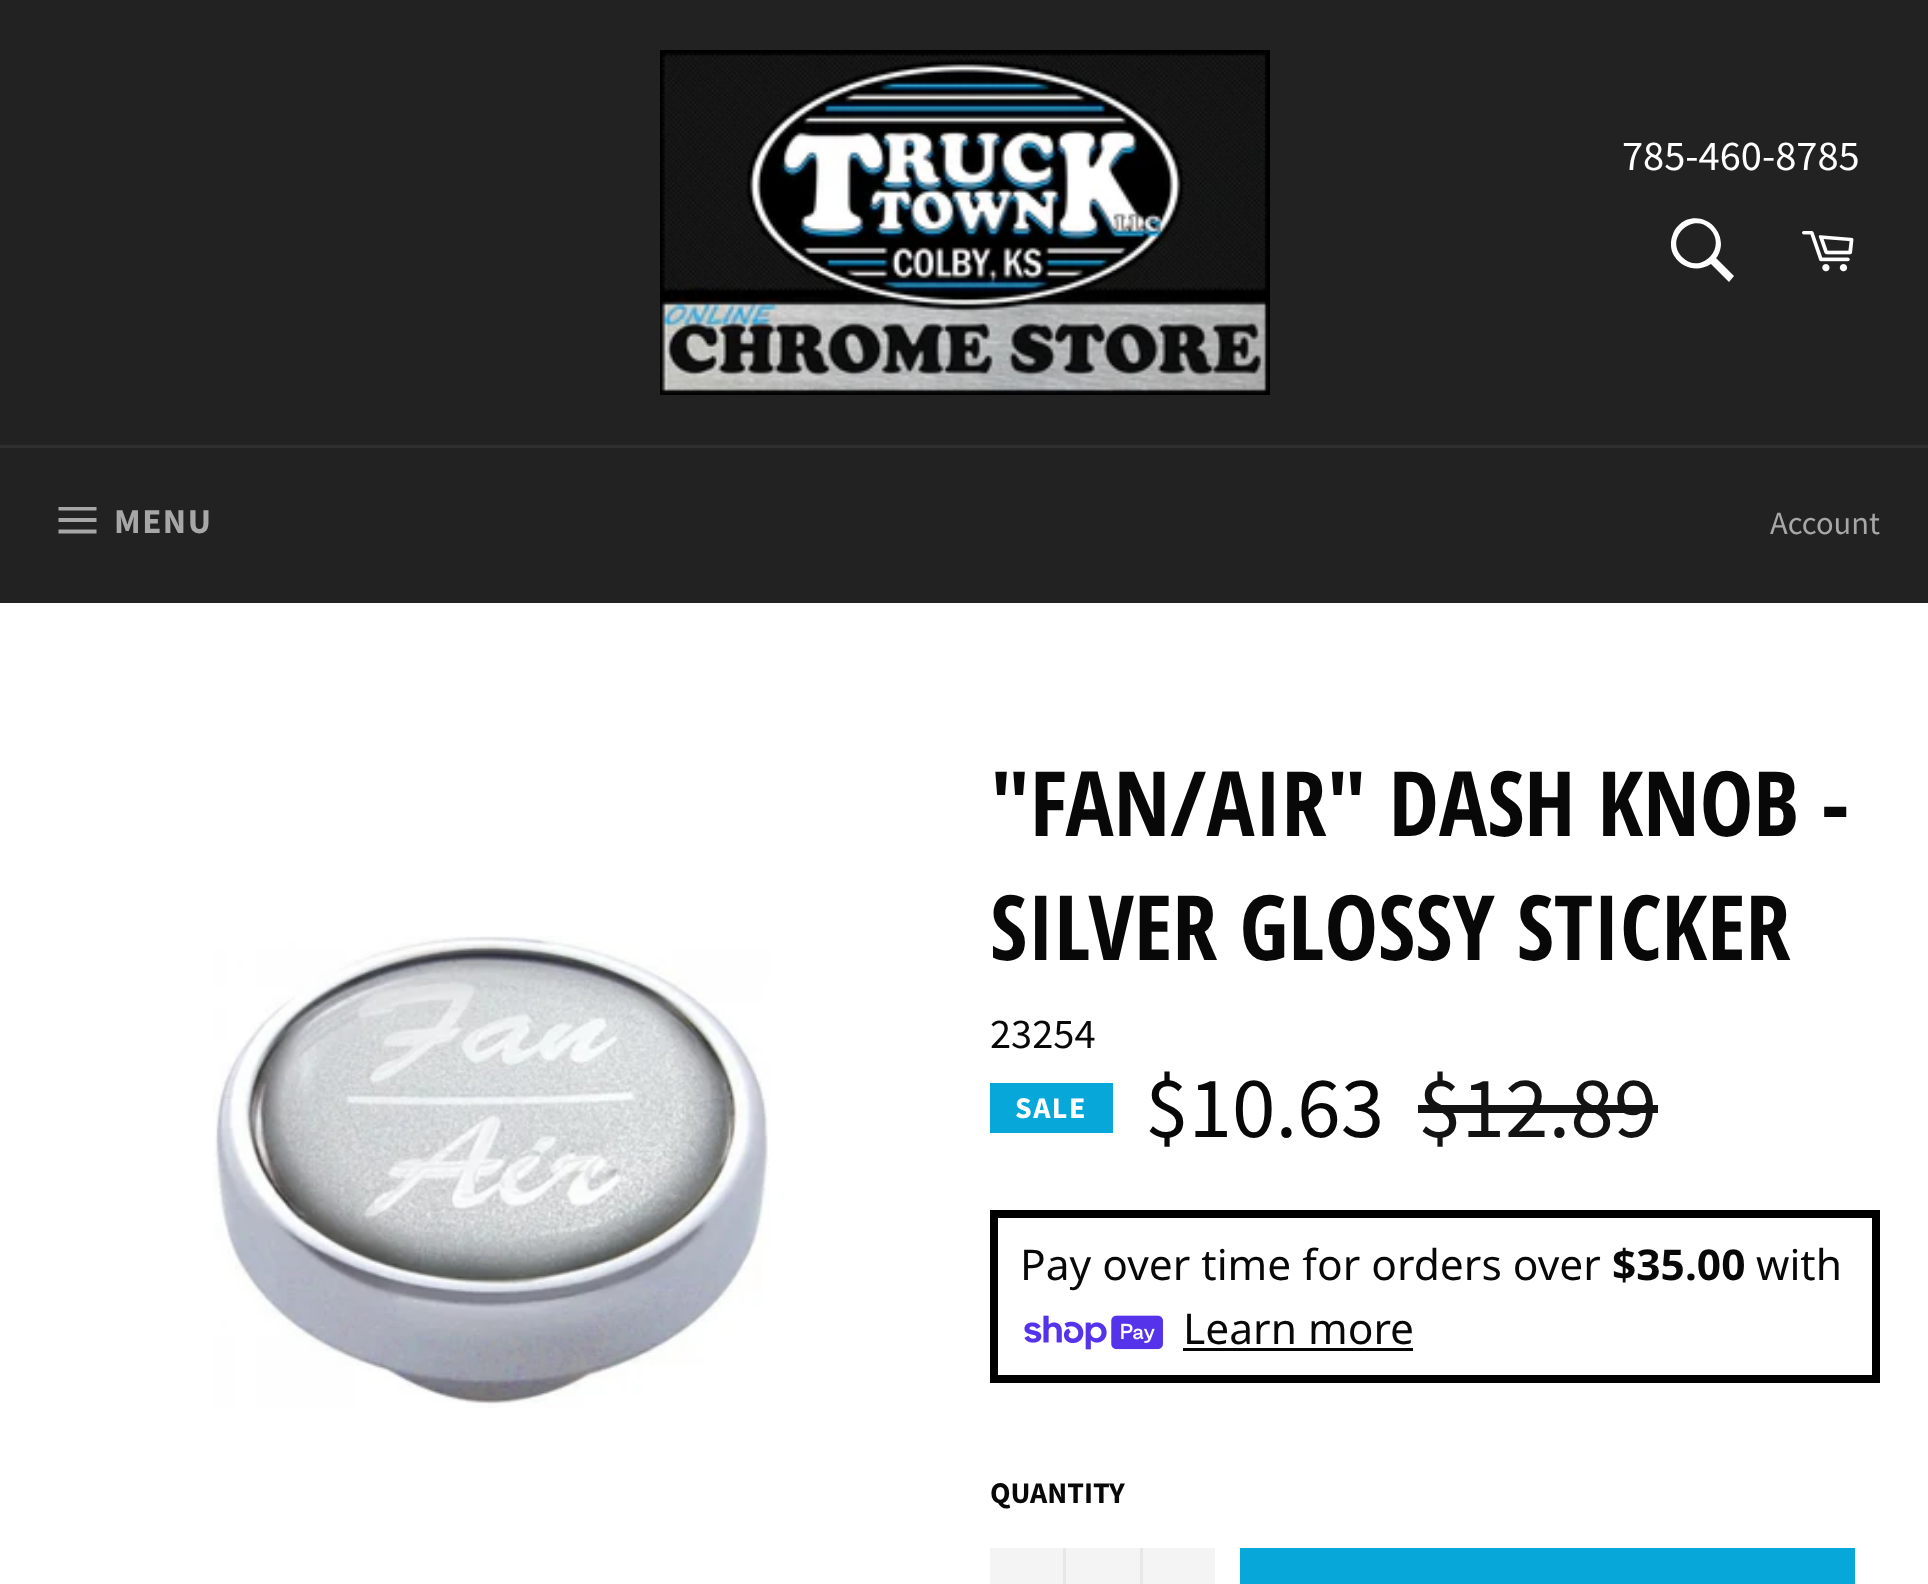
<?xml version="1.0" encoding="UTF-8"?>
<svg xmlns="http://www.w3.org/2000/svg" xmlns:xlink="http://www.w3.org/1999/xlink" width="1928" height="1584">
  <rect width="100%" height="100%" fill="#ffffff" />
  <rect width="1928" height="445" fill="#222222" />
  <image x="660" y="50" width="610" height="345" xlink:href="image1.png" />
  <path d="M 1717 257 c 13 -20 -8 -46 -31 -37 c -6 3 -11 8 -13 14 c -3 7 -3 17 2 23 c 8 12 24 15 36 7 l 18 18 l 5 -6 l -18 -18 z m -7 -28 c 18 19 -10 47 -28 28 c -18 -18 10 -46 28 -28 z" fill="#ffffff" />
  <image x="1802" y="231" width="52" height="41" xlink:href="image2.png" />
  <rect y="448" width="1928" height="155" fill="#222222" />
  <rect y="445" width="1928" height="3" fill="#2f2f2f" />
  <path d="M 58.5 518 h 38 v 4 h -38 z m 0 -11 h 38 v 3.5 h -38 z m 0 22.5 h 38 v 4 h -38 z" fill="#a7a7a7" />
  <image x="213" y="936" width="557" height="472" xlink:href="image3.png" />
  <rect x="990" y="1083" width="123" height="50" fill="#07a7da" />
  <rect x="1418" y="1105" width="240" height="8" fill="#131313" />
  <rect x="994" y="1214" width="882" height="165" fill="none" stroke="#000000" stroke-width="8" />
  <image x="1024" y="1315" width="139" height="35" xlink:href="image4.png" />
  <rect x="1183" y="1348" width="230" height="3" fill="#060606" />
  <rect x="990" y="1548" width="225" height="36" fill="#f4f4f4" />
  <rect x="1063" y="1548" width="3" height="36" fill="#e7e7e7" />
  <rect x="1140" y="1548" width="3" height="36" fill="#e7e7e7" />
  <rect x="1240" y="1548" width="615" height="36" fill="#07a7da" />
  <text x="1622" y="170" style="font-family: Source Sans Pro; font-size: 42.5px; fill: #ffffff">785-460-8785</text>
  <text x="114" y="533" style="font-family: Source Sans Pro; font-size: 35px; font-weight: bold; letter-spacing: 1.5px; fill: #a7a7a7">MENU</text>
  <text x="1770" y="534" style="font-family: Source Sans Pro; font-size: 32.5px; fill: #a7a7a7">Account</text>
  <text x="990" y="836" style="font-family: Open Sans Condensed; font-size: 90px; font-weight: bold; fill: #080808">"FAN/AIR" DASH KNOB -</text>
  <text x="990" y="960" style="font-family: Open Sans Condensed; font-size: 90px; font-weight: bold; fill: #080808">SILVER GLOSSY STICKER</text>
  <text x="990" y="1048" style="font-family: Source Sans Pro; font-size: 42.5px; fill: #080808">23254</text>
  <text x="1015" y="1118" style="font-family: Source Sans Pro; font-size: 30px; font-weight: bold; letter-spacing: 1.5px; fill: #ffffff">SALE</text>
  <text x="1145" y="1137" style="font-family: Source Sans Pro; font-size: 87.5px; fill: #080808">$10.63</text>
  <text x="1418" y="1137" style="font-family: Source Sans Pro; font-size: 87.5px; fill: #131313">$12.89</text>
  <text x="1020" y="1280" style="font-family: Noto Sans; font-size: 42.5px; fill: #080808">Pay over time for orders over</text>
  <text x="1612" y="1280" style="font-family: Noto Sans; font-size: 42.5px; font-weight: bold; fill: #080808">$35.00</text>
  <text x="1756" y="1280" style="font-family: Noto Sans; font-size: 42.5px; fill: #080808">with</text>
  <text x="1183" y="1344" style="font-family: Noto Sans; font-size: 42.5px; fill: #080808">Learn more</text>
  <text x="990" y="1503" style="font-family: Source Sans Pro; font-size: 30px; font-weight: bold; fill: #080808">QUANTITY</text>
</svg>
